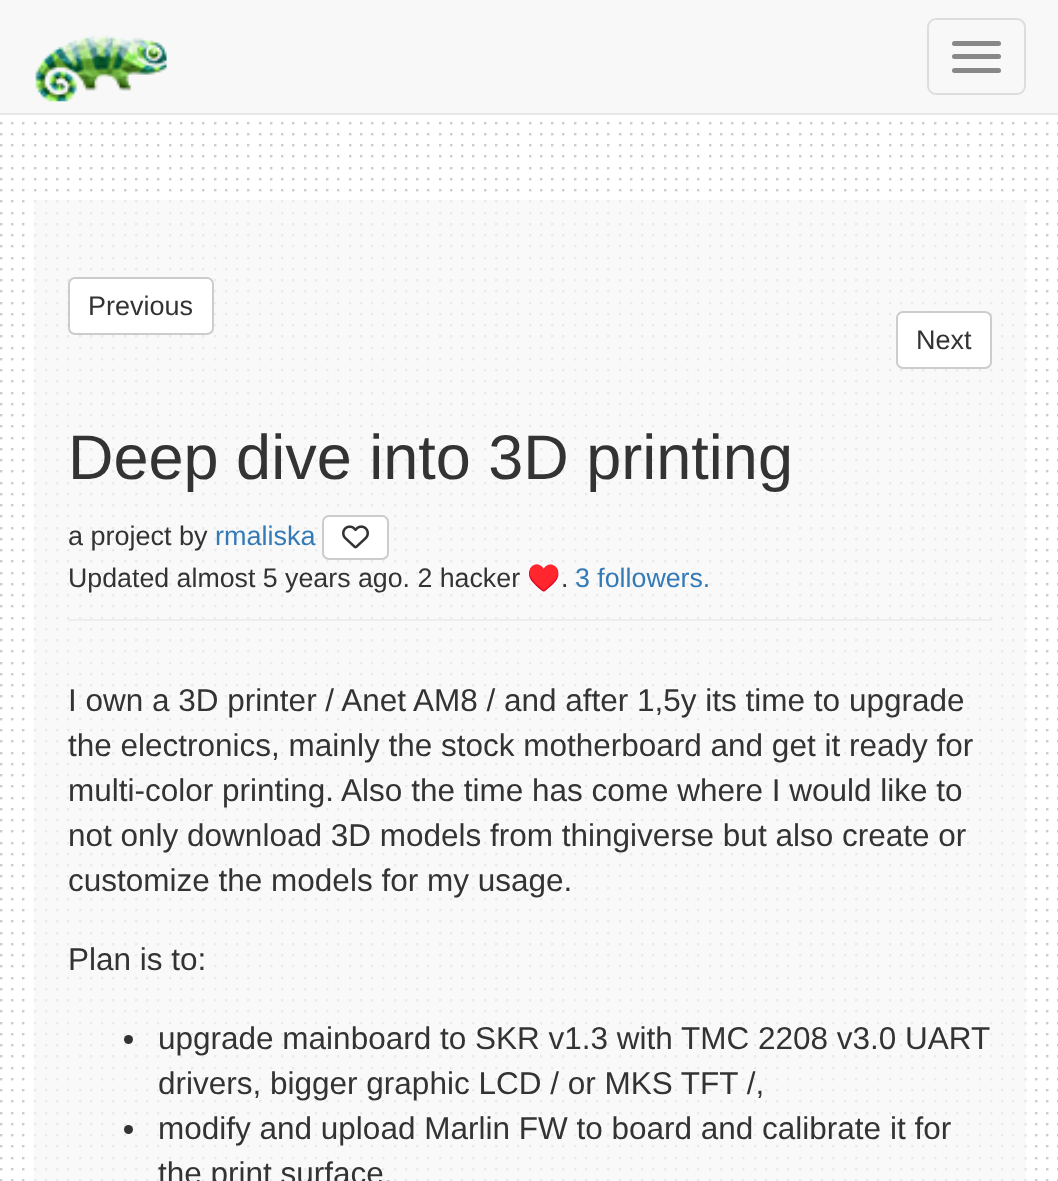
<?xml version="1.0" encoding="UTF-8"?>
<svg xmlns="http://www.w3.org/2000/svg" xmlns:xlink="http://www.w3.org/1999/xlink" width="1058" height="1181">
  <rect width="100%" height="100%" fill="#ffffff" />
  <image x="0" y="115" width="1058" height="1066" xlink:href="image1.png" />
  <rect width="1058" height="113" fill="#f8f8f8" />
  <rect y="113" width="1058" height="2" fill="#e7e7e7" />
  <image x="35" y="35" width="132" height="67" xlink:href="image2.png" />
  <rect x="928" y="19" width="97" height="75" rx="8" fill="none" stroke="#dddddd" stroke-width="2" />
  <rect x="952" y="41" width="49" height="5" rx="2.5" fill="#888888" />
  <rect x="952" y="54" width="49" height="5" rx="2.5" fill="#888888" />
  <rect x="952" y="68" width="49" height="5" rx="2.5" fill="#888888" />
  <rect x="34" y="200" width="992" height="981" fill="#f6f6f6" fill-opacity="0.7" />
  <rect x="69" y="278" width="144" height="56" rx="6" fill="#ffffff" stroke="#cccccc" stroke-width="2" />
  <rect x="897" y="312" width="94" height="56" rx="6" fill="#ffffff" stroke="#cccccc" stroke-width="2" />
  <rect x="68" y="619" width="924" height="2" fill="#eeeeee" />
  <rect x="323" y="516" width="65" height="43" rx="6" fill="#ffffff" stroke="#cccccc" stroke-width="2" />
  <image x="342" y="525" width="27" height="24" xlink:href="image3.png" />
  <circle cx="128.5" cy="1039.5" r="4.5" fill="#333333" />
  <circle cx="128.5" cy="1129.5" r="4.5" fill="#333333" />
  <text x="88" y="315" style="font-family: Liberation Sans; font-size: 27px; fill: #333333">Previous</text>
  <text x="916" y="349" style="font-family: Liberation Sans; font-size: 27px; fill: #333333">Next</text>
  <text x="68" y="479" style="font-family: Liberation Sans; font-size: 63px; fill: #333333">Deep dive into 3D printing</text>
  <text x="68" y="545" style="font-family: Liberation Sans; font-size: 27px; fill: #333333">a project by</text>
  <text x="215" y="545" style="font-family: Liberation Sans; font-size: 27px; fill: #337ab7">rmaliska</text>
  <text x="68" y="587" style="font-family: Liberation Sans; font-size: 26.75px; fill: #333333">Updated almost 5 years ago. 2 hacker</text>
  <text x="527" y="587" style="font-family: Noto Color Emoji; font-size: 26.75px; fill: #333333">♥️</text>
  <text x="561" y="587" style="font-family: Liberation Sans; font-size: 26.75px; fill: #333333">.</text>
  <text x="575" y="587" style="font-family: Liberation Sans; font-size: 26.75px; fill: #337ab7">3 followers.</text>
  <text x="68" y="711" style="font-family: Liberation Sans; font-size: 31.5px; fill: #333333">I own a 3D printer / Anet AM8 / and after 1,5y its time to upgrade</text>
  <text x="68" y="756" style="font-family: Liberation Sans; font-size: 31.5px; fill: #333333">the electronics, mainly the stock motherboard and get it ready for</text>
  <text x="68" y="801" style="font-family: Liberation Sans; font-size: 31.5px; fill: #333333">multi-color printing. Also the time has come where I would like to</text>
  <text x="68" y="846" style="font-family: Liberation Sans; font-size: 31.5px; fill: #333333">not only download 3D models from thingiverse but also create or</text>
  <text x="68" y="891" style="font-family: Liberation Sans; font-size: 31.5px; fill: #333333">customize the models for my usage.</text>
  <text x="68" y="970" style="font-family: Liberation Sans; font-size: 31.5px; fill: #333333">Plan is to:</text>
  <text x="158" y="1049" style="font-family: Liberation Sans; font-size: 31.5px; fill: #333333">upgrade mainboard to SKR v1.3 with TMC 2208 v3.0 UART</text>
  <text x="158" y="1094" style="font-family: Liberation Sans; font-size: 31.5px; fill: #333333">drivers, bigger graphic LCD / or MKS TFT /,</text>
  <text x="158" y="1139" style="font-family: Liberation Sans; font-size: 31.5px; fill: #333333">modify and upload Marlin FW to board and calibrate it for</text>
  <text x="158" y="1184" style="font-family: Liberation Sans; font-size: 31.5px; fill: #333333">the print surface,</text>
</svg>
